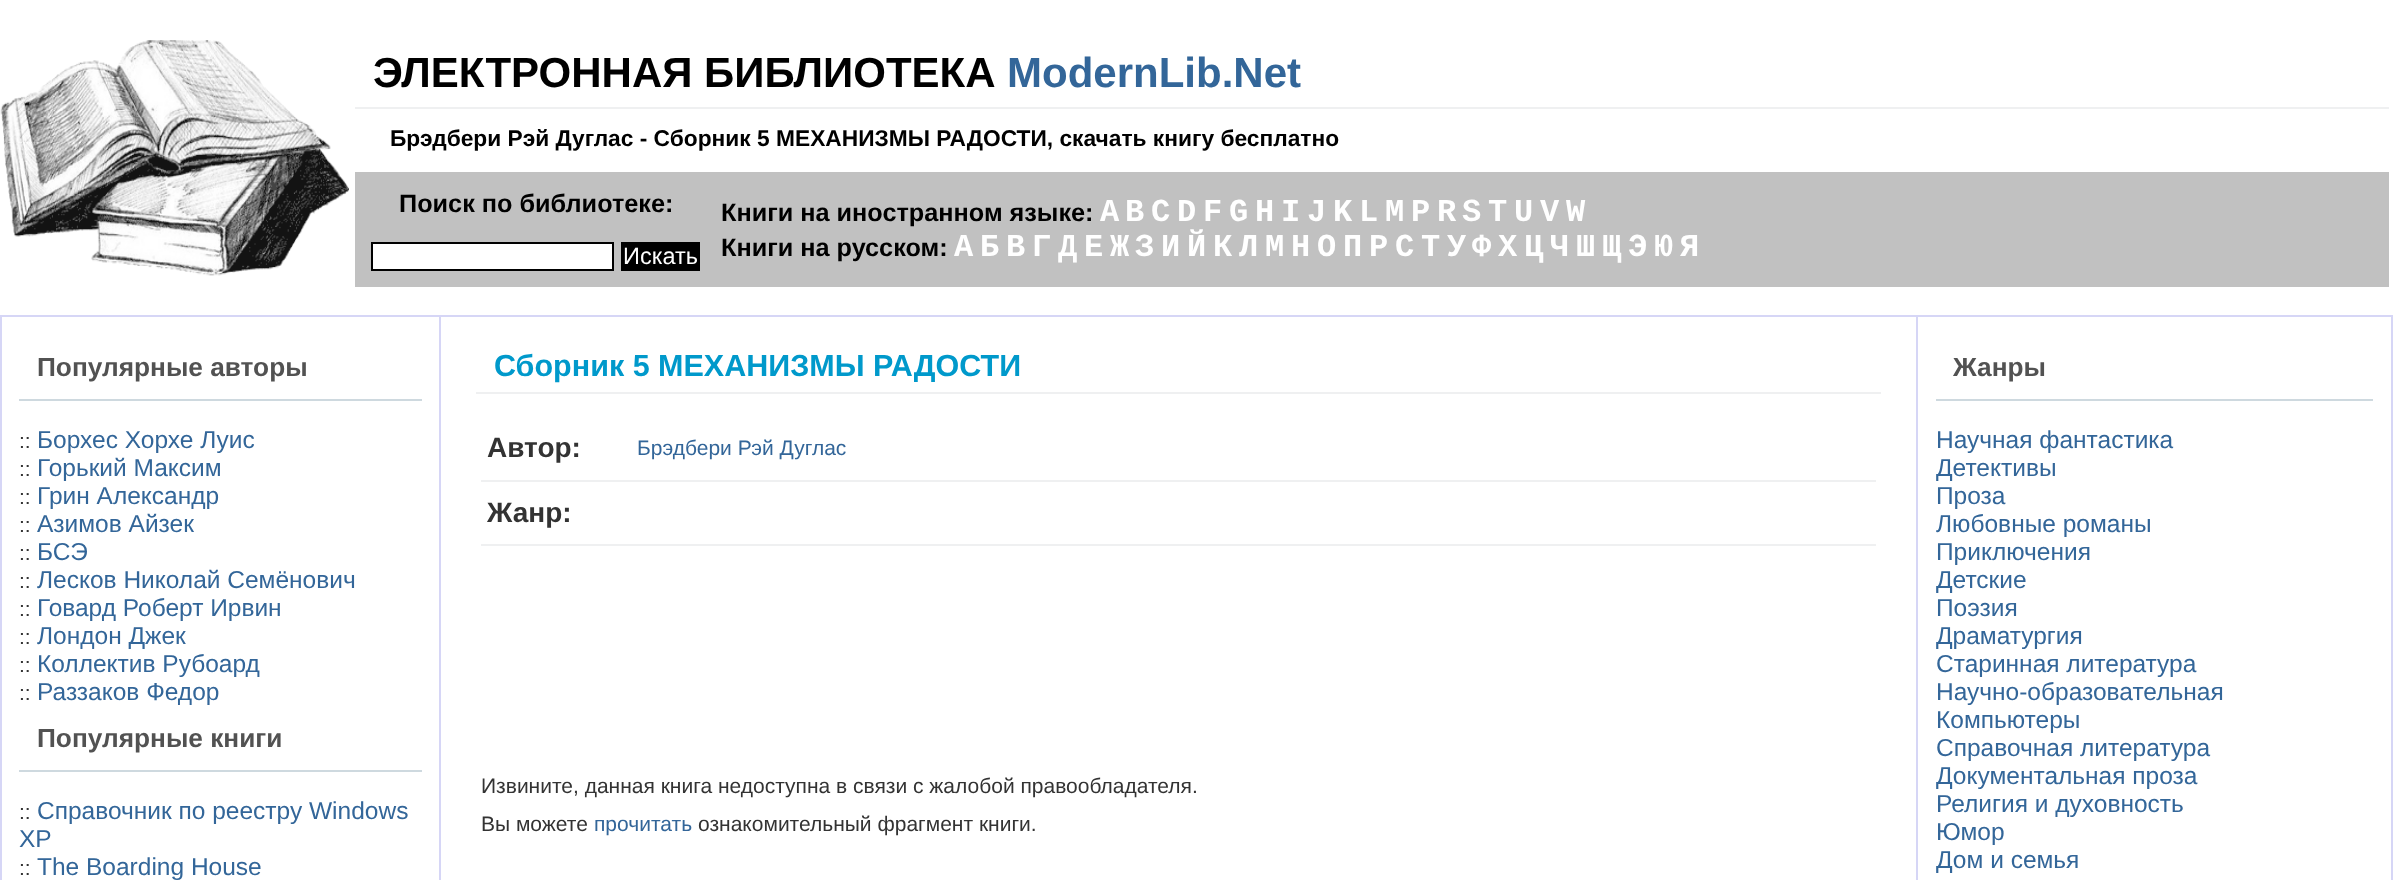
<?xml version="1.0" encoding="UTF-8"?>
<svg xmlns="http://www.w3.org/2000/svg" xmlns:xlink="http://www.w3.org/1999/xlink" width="2393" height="880">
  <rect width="100%" height="100%" fill="#ffffff" />
  <image x="0" y="40" width="349" height="236" xlink:href="image1.png" />
  <rect x="355" y="107" width="2034" height="2" fill="#eff0f1" />
  <rect x="355" y="172" width="2034" height="115" fill="#c1c1c1" />
  <rect x="372" y="243" width="241" height="27" fill="#ffffff" stroke="#000000" stroke-width="2" />
  <rect x="621" y="242" width="79" height="29" fill="#000000" />
  <rect y="315" width="2393" height="2" fill="#d6d6f6" />
  <rect y="315" width="2" height="565" fill="#d6d6f6" />
  <rect x="439" y="317" width="2" height="563" fill="#d6d6f6" />
  <rect x="19" y="399" width="403" height="2" fill="#ced9df" />
  <rect x="19" y="770" width="403" height="2" fill="#ced9df" />
  <rect x="476" y="392" width="1405" height="2" fill="#eff0f1" />
  <rect x="481" y="480" width="1395" height="2" fill="#eff0f1" />
  <rect x="481" y="544" width="1395" height="2" fill="#eff0f1" />
  <rect x="2391" y="317" width="2" height="563" fill="#d6d6f6" />
  <rect x="1916" y="317" width="2" height="563" fill="#d6d6f6" />
  <rect x="1936" y="399" width="437" height="2" fill="#ced9df" />
  <text x="373" y="87" style="font-family: Liberation Sans; font-size: 42px; font-weight: bold; fill: #000000">ЭЛЕКТРОННАЯ БИБЛИОТЕКА</text>
  <text x="1007" y="87" style="font-family: Liberation Sans; font-size: 42px; font-weight: bold; fill: #336699">ModernLib.Net</text>
  <text x="390" y="146" style="font-family: Liberation Sans; font-size: 22.75px; font-weight: bold; fill: #000000">Брэдбери Рэй Дуглас - Сборник 5 МЕХАНИЗМЫ РАДОСТИ, скачать книгу бесплатно</text>
  <text x="399" y="212" style="font-family: Liberation Sans; font-size: 25.25px; font-weight: bold; fill: #000000">Поиск по библиотеке:</text>
  <text x="623" y="264" style="font-family: Liberation Sans; font-size: 23.5px; fill: #ffffff">Искать</text>
  <text x="721" y="221" style="font-family: Liberation Sans; font-size: 25.25px; font-weight: bold; fill: #000000">Книги на иностранном языке:</text>
  <text x="1100" y="221" style="font-family: Liberation Mono; font-size: 32px; font-weight: bold; fill: #ffffff">A</text>
  <text x="1125" y="221" style="font-family: Liberation Mono; font-size: 32px; font-weight: bold; fill: #ffffff">B</text>
  <text x="1151" y="221" style="font-family: Liberation Mono; font-size: 32px; font-weight: bold; fill: #ffffff">C</text>
  <text x="1177" y="221" style="font-family: Liberation Mono; font-size: 32px; font-weight: bold; fill: #ffffff">D</text>
  <text x="1203" y="221" style="font-family: Liberation Mono; font-size: 32px; font-weight: bold; fill: #ffffff">F</text>
  <text x="1229" y="221" style="font-family: Liberation Mono; font-size: 32px; font-weight: bold; fill: #ffffff">G</text>
  <text x="1255" y="221" style="font-family: Liberation Mono; font-size: 32px; font-weight: bold; fill: #ffffff">H</text>
  <text x="1281" y="221" style="font-family: Liberation Mono; font-size: 32px; font-weight: bold; fill: #ffffff">I</text>
  <text x="1307" y="221" style="font-family: Liberation Mono; font-size: 32px; font-weight: bold; fill: #ffffff">J</text>
  <text x="1333" y="221" style="font-family: Liberation Mono; font-size: 32px; font-weight: bold; fill: #ffffff">K</text>
  <text x="1359" y="221" style="font-family: Liberation Mono; font-size: 32px; font-weight: bold; fill: #ffffff">L</text>
  <text x="1385" y="221" style="font-family: Liberation Mono; font-size: 32px; font-weight: bold; fill: #ffffff">M</text>
  <text x="1411" y="221" style="font-family: Liberation Mono; font-size: 32px; font-weight: bold; fill: #ffffff">P</text>
  <text x="1437" y="221" style="font-family: Liberation Mono; font-size: 32px; font-weight: bold; fill: #ffffff">R</text>
  <text x="1462" y="221" style="font-family: Liberation Mono; font-size: 32px; font-weight: bold; fill: #ffffff">S</text>
  <text x="1488" y="221" style="font-family: Liberation Mono; font-size: 32px; font-weight: bold; fill: #ffffff">T</text>
  <text x="1514" y="221" style="font-family: Liberation Mono; font-size: 32px; font-weight: bold; fill: #ffffff">U</text>
  <text x="1540" y="221" style="font-family: Liberation Mono; font-size: 32px; font-weight: bold; fill: #ffffff">V</text>
  <text x="1566" y="221" style="font-family: Liberation Mono; font-size: 32px; font-weight: bold; fill: #ffffff">W</text>
  <text x="721" y="256" style="font-family: Liberation Sans; font-size: 25.25px; font-weight: bold; fill: #000000">Книги на русском:</text>
  <text x="954" y="256" style="font-family: Liberation Mono; font-size: 32px; font-weight: bold; fill: #ffffff">А</text>
  <text x="980" y="256" style="font-family: Liberation Mono; font-size: 32px; font-weight: bold; fill: #ffffff">Б</text>
  <text x="1006" y="256" style="font-family: Liberation Mono; font-size: 32px; font-weight: bold; fill: #ffffff">В</text>
  <text x="1032" y="256" style="font-family: Liberation Mono; font-size: 32px; font-weight: bold; fill: #ffffff">Г</text>
  <text x="1058" y="256" style="font-family: Liberation Mono; font-size: 32px; font-weight: bold; fill: #ffffff">Д</text>
  <text x="1084" y="256" style="font-family: Liberation Mono; font-size: 32px; font-weight: bold; fill: #ffffff">Е</text>
  <text x="1110" y="256" style="font-family: Liberation Mono; font-size: 32px; font-weight: bold; fill: #ffffff">Ж</text>
  <text x="1135" y="256" style="font-family: Liberation Mono; font-size: 32px; font-weight: bold; fill: #ffffff">З</text>
  <text x="1161" y="256" style="font-family: Liberation Mono; font-size: 32px; font-weight: bold; fill: #ffffff">И</text>
  <text x="1187" y="256" style="font-family: Liberation Mono; font-size: 32px; font-weight: bold; fill: #ffffff">Й</text>
  <text x="1213" y="256" style="font-family: Liberation Mono; font-size: 32px; font-weight: bold; fill: #ffffff">К</text>
  <text x="1239" y="256" style="font-family: Liberation Mono; font-size: 32px; font-weight: bold; fill: #ffffff">Л</text>
  <text x="1265" y="256" style="font-family: Liberation Mono; font-size: 32px; font-weight: bold; fill: #ffffff">М</text>
  <text x="1291" y="256" style="font-family: Liberation Mono; font-size: 32px; font-weight: bold; fill: #ffffff">Н</text>
  <text x="1317" y="256" style="font-family: Liberation Mono; font-size: 32px; font-weight: bold; fill: #ffffff">О</text>
  <text x="1343" y="256" style="font-family: Liberation Mono; font-size: 32px; font-weight: bold; fill: #ffffff">П</text>
  <text x="1369" y="256" style="font-family: Liberation Mono; font-size: 32px; font-weight: bold; fill: #ffffff">Р</text>
  <text x="1395" y="256" style="font-family: Liberation Mono; font-size: 32px; font-weight: bold; fill: #ffffff">С</text>
  <text x="1421" y="256" style="font-family: Liberation Mono; font-size: 32px; font-weight: bold; fill: #ffffff">Т</text>
  <text x="1447" y="256" style="font-family: Liberation Mono; font-size: 32px; font-weight: bold; fill: #ffffff">У</text>
  <text x="1472" y="256" style="font-family: Liberation Mono; font-size: 32px; font-weight: bold; fill: #ffffff">Ф</text>
  <text x="1498" y="256" style="font-family: Liberation Mono; font-size: 32px; font-weight: bold; fill: #ffffff">Х</text>
  <text x="1524" y="256" style="font-family: Liberation Mono; font-size: 32px; font-weight: bold; fill: #ffffff">Ц</text>
  <text x="1550" y="256" style="font-family: Liberation Mono; font-size: 32px; font-weight: bold; fill: #ffffff">Ч</text>
  <text x="1576" y="256" style="font-family: Liberation Mono; font-size: 32px; font-weight: bold; fill: #ffffff">Ш</text>
  <text x="1602" y="256" style="font-family: Liberation Mono; font-size: 32px; font-weight: bold; fill: #ffffff">Щ</text>
  <text x="1628" y="256" style="font-family: Liberation Mono; font-size: 32px; font-weight: bold; fill: #ffffff">Э</text>
  <text x="1654" y="256" style="font-family: Liberation Mono; font-size: 32px; font-weight: bold; fill: #ffffff">Ю</text>
  <text x="1680" y="256" style="font-family: Liberation Mono; font-size: 32px; font-weight: bold; fill: #ffffff">Я</text>
  <text x="37" y="376" style="font-family: Liberation Sans; font-size: 26.25px; font-weight: bold; fill: #525252">Популярные авторы</text>
  <text x="19" y="448" style="font-family: Liberation Sans; font-size: 21px; fill: #333333">::</text>
  <text x="37" y="448" style="font-family: Liberation Sans; font-size: 24.5px; fill: #336699">Борхес Хорхе Луис</text>
  <text x="19" y="476" style="font-family: Liberation Sans; font-size: 21px; fill: #333333">::</text>
  <text x="37" y="476" style="font-family: Liberation Sans; font-size: 24.5px; fill: #336699">Горький Максим</text>
  <text x="19" y="504" style="font-family: Liberation Sans; font-size: 21px; fill: #333333">::</text>
  <text x="37" y="504" style="font-family: Liberation Sans; font-size: 24.5px; fill: #336699">Грин Александр</text>
  <text x="19" y="532" style="font-family: Liberation Sans; font-size: 21px; fill: #333333">::</text>
  <text x="37" y="532" style="font-family: Liberation Sans; font-size: 24.5px; fill: #336699">Азимов Айзек</text>
  <text x="19" y="560" style="font-family: Liberation Sans; font-size: 21px; fill: #333333">::</text>
  <text x="37" y="560" style="font-family: Liberation Sans; font-size: 24.5px; fill: #336699">БСЭ</text>
  <text x="19" y="588" style="font-family: Liberation Sans; font-size: 21px; fill: #333333">::</text>
  <text x="37" y="588" style="font-family: Liberation Sans; font-size: 24.5px; fill: #336699">Лесков Николай Семёнович</text>
  <text x="19" y="616" style="font-family: Liberation Sans; font-size: 21px; fill: #333333">::</text>
  <text x="37" y="616" style="font-family: Liberation Sans; font-size: 24.5px; fill: #336699">Говард Роберт Ирвин</text>
  <text x="19" y="644" style="font-family: Liberation Sans; font-size: 21px; fill: #333333">::</text>
  <text x="37" y="644" style="font-family: Liberation Sans; font-size: 24.5px; fill: #336699">Лондон Джек</text>
  <text x="19" y="672" style="font-family: Liberation Sans; font-size: 21px; fill: #333333">::</text>
  <text x="37" y="672" style="font-family: Liberation Sans; font-size: 24.5px; fill: #336699">Коллектив Рубоард</text>
  <text x="19" y="700" style="font-family: Liberation Sans; font-size: 21px; fill: #333333">::</text>
  <text x="37" y="700" style="font-family: Liberation Sans; font-size: 24.5px; fill: #336699">Раззаков Федор</text>
  <text x="37" y="747" style="font-family: Liberation Sans; font-size: 26.25px; font-weight: bold; fill: #525252">Популярные книги</text>
  <text x="19" y="819" style="font-family: Liberation Sans; font-size: 21px; fill: #333333">::</text>
  <text x="37" y="819" style="font-family: Liberation Sans; font-size: 24.5px; fill: #336699">Справочник по реестру Windows</text>
  <text x="19" y="847" style="font-family: Liberation Sans; font-size: 24.5px; fill: #336699">XP</text>
  <text x="19" y="875" style="font-family: Liberation Sans; font-size: 21px; fill: #333333">::</text>
  <text x="37" y="875" style="font-family: Liberation Sans; font-size: 24.5px; fill: #336699">The Boarding House</text>
  <text x="494" y="376" style="font-family: Liberation Sans; font-size: 30.5px; font-weight: bold; fill: #0099cb">Сборник 5 МЕХАНИЗМЫ РАДОСТИ</text>
  <text x="487" y="457" style="font-family: Liberation Sans; font-size: 28px; font-weight: bold; fill: #333333">Автор:</text>
  <text x="637" y="455" style="font-family: Liberation Sans; font-size: 21px; fill: #336699">Брэдбери Рэй Дуглас</text>
  <text x="487" y="522" style="font-family: Liberation Sans; font-size: 28px; font-weight: bold; fill: #333333">Жанр:</text>
  <text x="481" y="793" style="font-family: Liberation Sans; font-size: 21px; fill: #333333">Извините, данная книга недоступна в связи с жалобой правообладателя.</text>
  <text x="481" y="831" style="font-family: Liberation Sans; font-size: 21px; fill: #333333">Вы можете</text>
  <text x="594" y="831" style="font-family: Liberation Sans; font-size: 21px; fill: #336699">прочитать</text>
  <text x="698" y="831" style="font-family: Liberation Sans; font-size: 21px; fill: #333333">ознакомительный фрагмент книги.</text>
  <text x="1953" y="376" style="font-family: Liberation Sans; font-size: 26.25px; font-weight: bold; fill: #525252">Жанры</text>
  <text x="1936" y="448" style="font-family: Liberation Sans; font-size: 24.5px; fill: #336699">Научная фантастика</text>
  <text x="1936" y="476" style="font-family: Liberation Sans; font-size: 24.5px; fill: #336699">Детективы</text>
  <text x="1936" y="504" style="font-family: Liberation Sans; font-size: 24.5px; fill: #336699">Проза</text>
  <text x="1936" y="532" style="font-family: Liberation Sans; font-size: 24.5px; fill: #336699">Любовные романы</text>
  <text x="1936" y="560" style="font-family: Liberation Sans; font-size: 24.5px; fill: #336699">Приключения</text>
  <text x="1936" y="588" style="font-family: Liberation Sans; font-size: 24.5px; fill: #336699">Детские</text>
  <text x="1936" y="616" style="font-family: Liberation Sans; font-size: 24.5px; fill: #336699">Поэзия</text>
  <text x="1936" y="644" style="font-family: Liberation Sans; font-size: 24.5px; fill: #336699">Драматургия</text>
  <text x="1936" y="672" style="font-family: Liberation Sans; font-size: 24.5px; fill: #336699">Старинная литература</text>
  <text x="1936" y="700" style="font-family: Liberation Sans; font-size: 24.5px; fill: #336699">Научно-образовательная</text>
  <text x="1936" y="728" style="font-family: Liberation Sans; font-size: 24.5px; fill: #336699">Компьютеры</text>
  <text x="1936" y="756" style="font-family: Liberation Sans; font-size: 24.5px; fill: #336699">Справочная литература</text>
  <text x="1936" y="784" style="font-family: Liberation Sans; font-size: 24.5px; fill: #336699">Документальная проза</text>
  <text x="1936" y="812" style="font-family: Liberation Sans; font-size: 24.5px; fill: #336699">Религия и духовность</text>
  <text x="1936" y="840" style="font-family: Liberation Sans; font-size: 24.5px; fill: #336699">Юмор</text>
  <text x="1936" y="868" style="font-family: Liberation Sans; font-size: 24.5px; fill: #336699">Дом и семья</text>
</svg>
